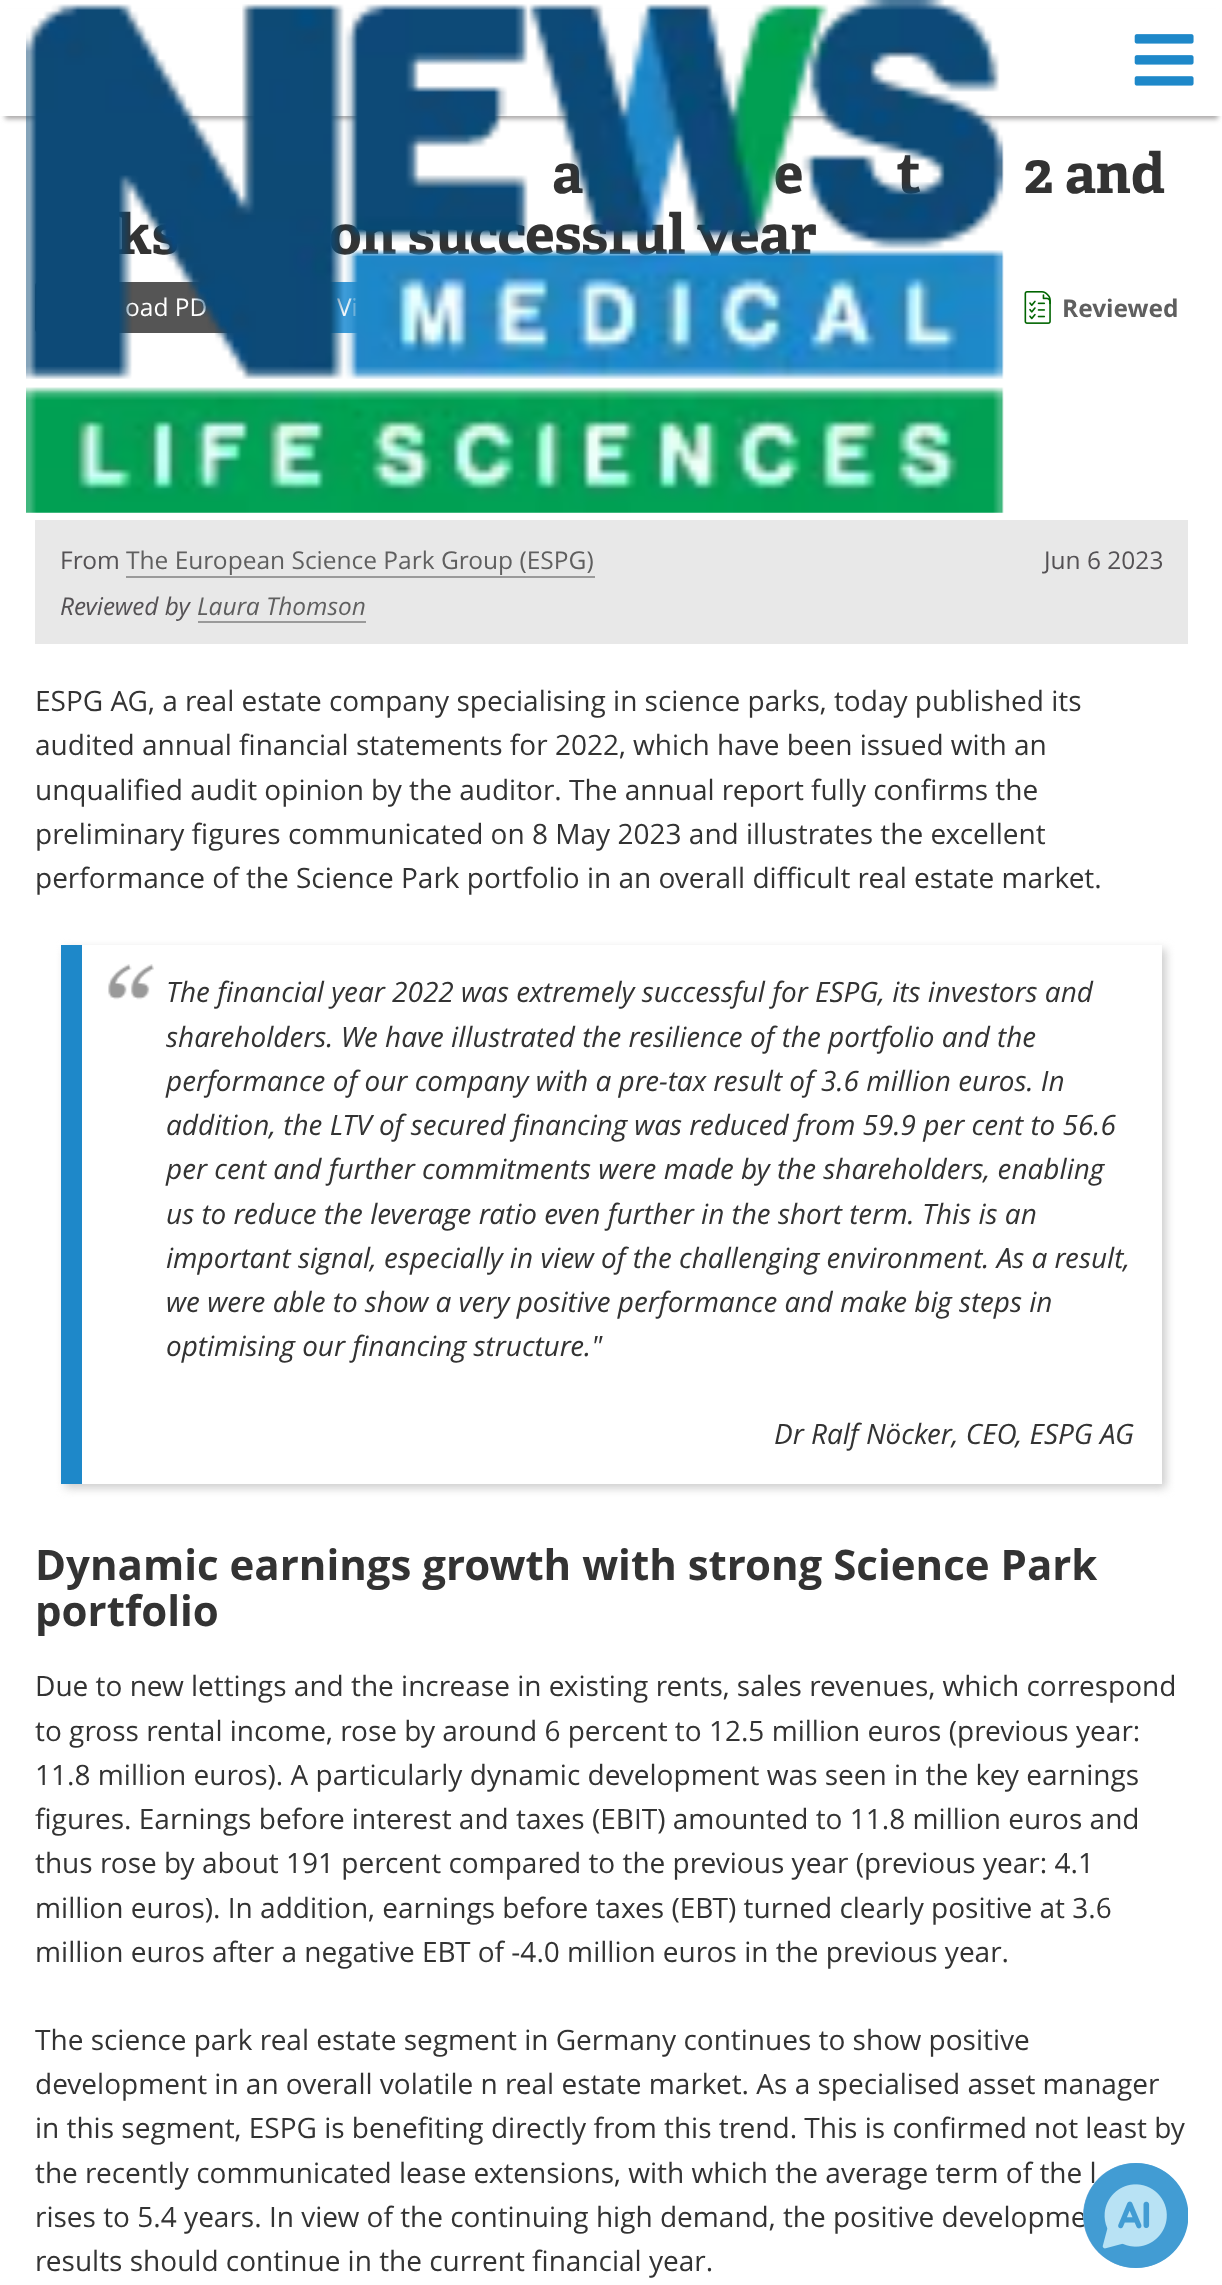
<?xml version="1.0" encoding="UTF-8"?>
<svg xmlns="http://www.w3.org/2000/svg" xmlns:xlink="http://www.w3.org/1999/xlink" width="1222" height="2285">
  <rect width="100%" height="100%" fill="#ffffff" />
  <rect x="5" y="14" width="1213" height="105" fill="#a9a7a7" filter="blur(2.5px)" />
  <rect y="9" width="1222" height="107" fill="#ffffff" />
  <image x="1134" y="34" width="60" height="52" xlink:href="image2.png" />
  <rect x="35" y="282" width="268" height="51" rx="4" fill="#555555" />
  <rect x="330" y="282" width="28" height="51" fill="#3f9edb" />
  <image x="1024" y="291" width="27" height="33" xlink:href="image3.png" />
  <rect x="35" y="520" width="1153" height="124" fill="#e8e8e8" />
  <rect x="126" y="576" width="469" height="2" fill="#9a9a9a" />
  <rect x="198" y="621" width="168" height="2" fill="#9a9a9a" />
  <rect x="65" y="949" width="1101" height="539" fill="#cccccc" filter="blur(5px)" />
  <rect x="82" y="945" width="1080" height="539" fill="#ffffff" />
  <rect x="61" y="945" width="21" height="539" fill="#1e88c9" />
  <image x="108" y="964" width="46" height="36" xlink:href="image4.png" />
  <text x="552" y="193" style="font-family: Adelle; font-size: 56px; font-weight: bold; fill: #333333">a</text>
  <text x="774" y="193" style="font-family: Adelle; font-size: 56px; font-weight: bold; fill: #333333">e</text>
  <text x="897" y="193" style="font-family: Adelle; font-size: 56px; font-weight: bold; fill: #333333">t</text>
  <text x="1024" y="193" style="font-family: Adelle; font-size: 56px; font-weight: bold; fill: #333333">2 and</text>
  <text x="117" y="254" style="font-family: Adelle; font-size: 56px; font-weight: bold; fill: #333333">ks</text>
  <text x="329" y="254" style="font-family: Adelle; font-size: 56px; font-weight: bold; fill: #333333">on successful year</text>
  <text x="125" y="316" style="font-family: Open Sans; font-size: 24.5px; fill: #ffffff">oad PD</text>
  <text x="337" y="316" style="font-family: Open Sans; font-size: 24.5px; fill: #ffffff">Vi</text>
  <image x="26" y="0" width="978" height="513" xlink:href="image1.png" />
  <text x="1062" y="317" style="font-family: Open Sans; font-size: 24.5px; font-weight: bold; fill: #5f5f5f">Reviewed</text>
  <text x="60" y="569" style="font-family: Open Sans; font-size: 24.5px; fill: #545154">From</text>
  <text x="126" y="569" style="font-family: Open Sans; font-size: 24.5px; fill: #5f5f5f">The European Science Park Group (ESPG)</text>
  <text x="60" y="615" style="font-family: Open Sans; font-size: 24.5px; font-style: italic; fill: #545154">Reviewed by</text>
  <text x="197" y="615" style="font-family: Open Sans; font-size: 24.5px; font-style: italic; fill: #5f5f5f">Laura Thomson</text>
  <text x="1044" y="569" style="font-family: Open Sans; font-size: 24.5px; fill: #545154">Jun 6 2023</text>
  <text x="35" y="711" style="font-family: Open Sans; font-size: 28px; fill: #333333">ESPG AG, a real estate company specialising in science parks, today published its</text>
  <text x="35" y="755" style="font-family: Open Sans; font-size: 28px; fill: #333333">audited annual financial statements for 2022, which have been issued with an</text>
  <text x="35" y="800" style="font-family: Open Sans; font-size: 28px; fill: #333333">unqualified audit opinion by the auditor. The annual report fully confirms the</text>
  <text x="35" y="844" style="font-family: Open Sans; font-size: 28px; fill: #333333">preliminary figures communicated on 8 May 2023 and illustrates the excellent</text>
  <text x="35" y="888" style="font-family: Open Sans; font-size: 28px; fill: #333333">performance of the Science Park portfolio in an overall difficult real estate market.</text>
  <text x="166" y="1002" style="font-family: Open Sans; font-size: 28px; font-style: italic; fill: #333333">The financial year 2022 was extremely successful for ESPG, its investors and</text>
  <text x="166" y="1047" style="font-family: Open Sans; font-size: 28px; font-style: italic; fill: #333333">shareholders. We have illustrated the resilience of the portfolio and the</text>
  <text x="166" y="1091" style="font-family: Open Sans; font-size: 28px; font-style: italic; fill: #333333">performance of our company with a pre-tax result of 3.6 million euros. In</text>
  <text x="166" y="1135" style="font-family: Open Sans; font-size: 28px; font-style: italic; fill: #333333">addition, the LTV of secured financing was reduced from 59.9 per cent to 56.6</text>
  <text x="166" y="1179" style="font-family: Open Sans; font-size: 28px; font-style: italic; fill: #333333">per cent and further commitments were made by the shareholders, enabling</text>
  <text x="166" y="1224" style="font-family: Open Sans; font-size: 28px; font-style: italic; fill: #333333">us to reduce the leverage ratio even further in the short term. This is an</text>
  <text x="166" y="1268" style="font-family: Open Sans; font-size: 28px; font-style: italic; fill: #333333">important signal, especially in view of the challenging environment. As a result,</text>
  <text x="166" y="1312" style="font-family: Open Sans; font-size: 28px; font-style: italic; fill: #333333">we were able to show a very positive performance and make big steps in</text>
  <text x="166" y="1356" style="font-family: Open Sans; font-size: 28px; font-style: italic; fill: #333333">optimising our financing structure."</text>
  <text x="774" y="1444" style="font-family: Open Sans; font-size: 28px; font-style: italic; fill: #333333">Dr Ralf Nöcker, CEO, ESPG AG</text>
  <text x="35" y="1580" style="font-family: Open Sans; font-size: 42px; font-weight: bold; fill: #333333">Dynamic earnings growth with strong Science Park</text>
  <text x="35" y="1626" style="font-family: Open Sans; font-size: 42px; font-weight: bold; fill: #333333">portfolio</text>
  <text x="35" y="1696" style="font-family: Open Sans; font-size: 28px; fill: #333333">Due to new lettings and the increase in existing rents, sales revenues, which correspond</text>
  <text x="35" y="1741" style="font-family: Open Sans; font-size: 28px; fill: #333333">to gross rental income, rose by around 6 percent to 12.5 million euros (previous year:</text>
  <text x="35" y="1785" style="font-family: Open Sans; font-size: 28px; fill: #333333">11.8 million euros). A particularly dynamic development was seen in the key earnings</text>
  <text x="35" y="1829" style="font-family: Open Sans; font-size: 28px; fill: #333333">figures. Earnings before interest and taxes (EBIT) amounted to 11.8 million euros and</text>
  <text x="35" y="1873" style="font-family: Open Sans; font-size: 28px; fill: #333333">thus rose by about 191 percent compared to the previous year (previous year: 4.1</text>
  <text x="35" y="1918" style="font-family: Open Sans; font-size: 28px; fill: #333333">million euros). In addition, earnings before taxes (EBT) turned clearly positive at 3.6</text>
  <text x="35" y="1962" style="font-family: Open Sans; font-size: 28px; fill: #333333">million euros after a negative EBT of -4.0 million euros in the previous year.</text>
  <text x="35" y="2050" style="font-family: Open Sans; font-size: 28px; fill: #333333">The science park real estate segment in Germany continues to show positive</text>
  <text x="35" y="2094" style="font-family: Open Sans; font-size: 28px; fill: #333333">development in an overall volatile n real estate market. As a specialised asset manager</text>
  <text x="35" y="2138" style="font-family: Open Sans; font-size: 28px; fill: #333333">in this segment, ESPG is benefiting directly from this trend. This is confirmed not least by</text>
  <text x="35" y="2183" style="font-family: Open Sans; font-size: 28px; fill: #333333">the recently communicated lease extensions, with which the average term of the l</text>
  <text x="35" y="2227" style="font-family: Open Sans; font-size: 28px; fill: #333333">rises to 5.4 years. In view of the continuing high demand, the positive developme</text>
  <text x="35" y="2271" style="font-family: Open Sans; font-size: 28px; fill: #333333">results should continue in the current financial year.</text>
  <circle cx="1135.5" cy="2215.5" r="52.5" fill="#7fb3db" />
  <image x="1083" y="2163" width="105" height="105" xlink:href="image5.png" />
</svg>
